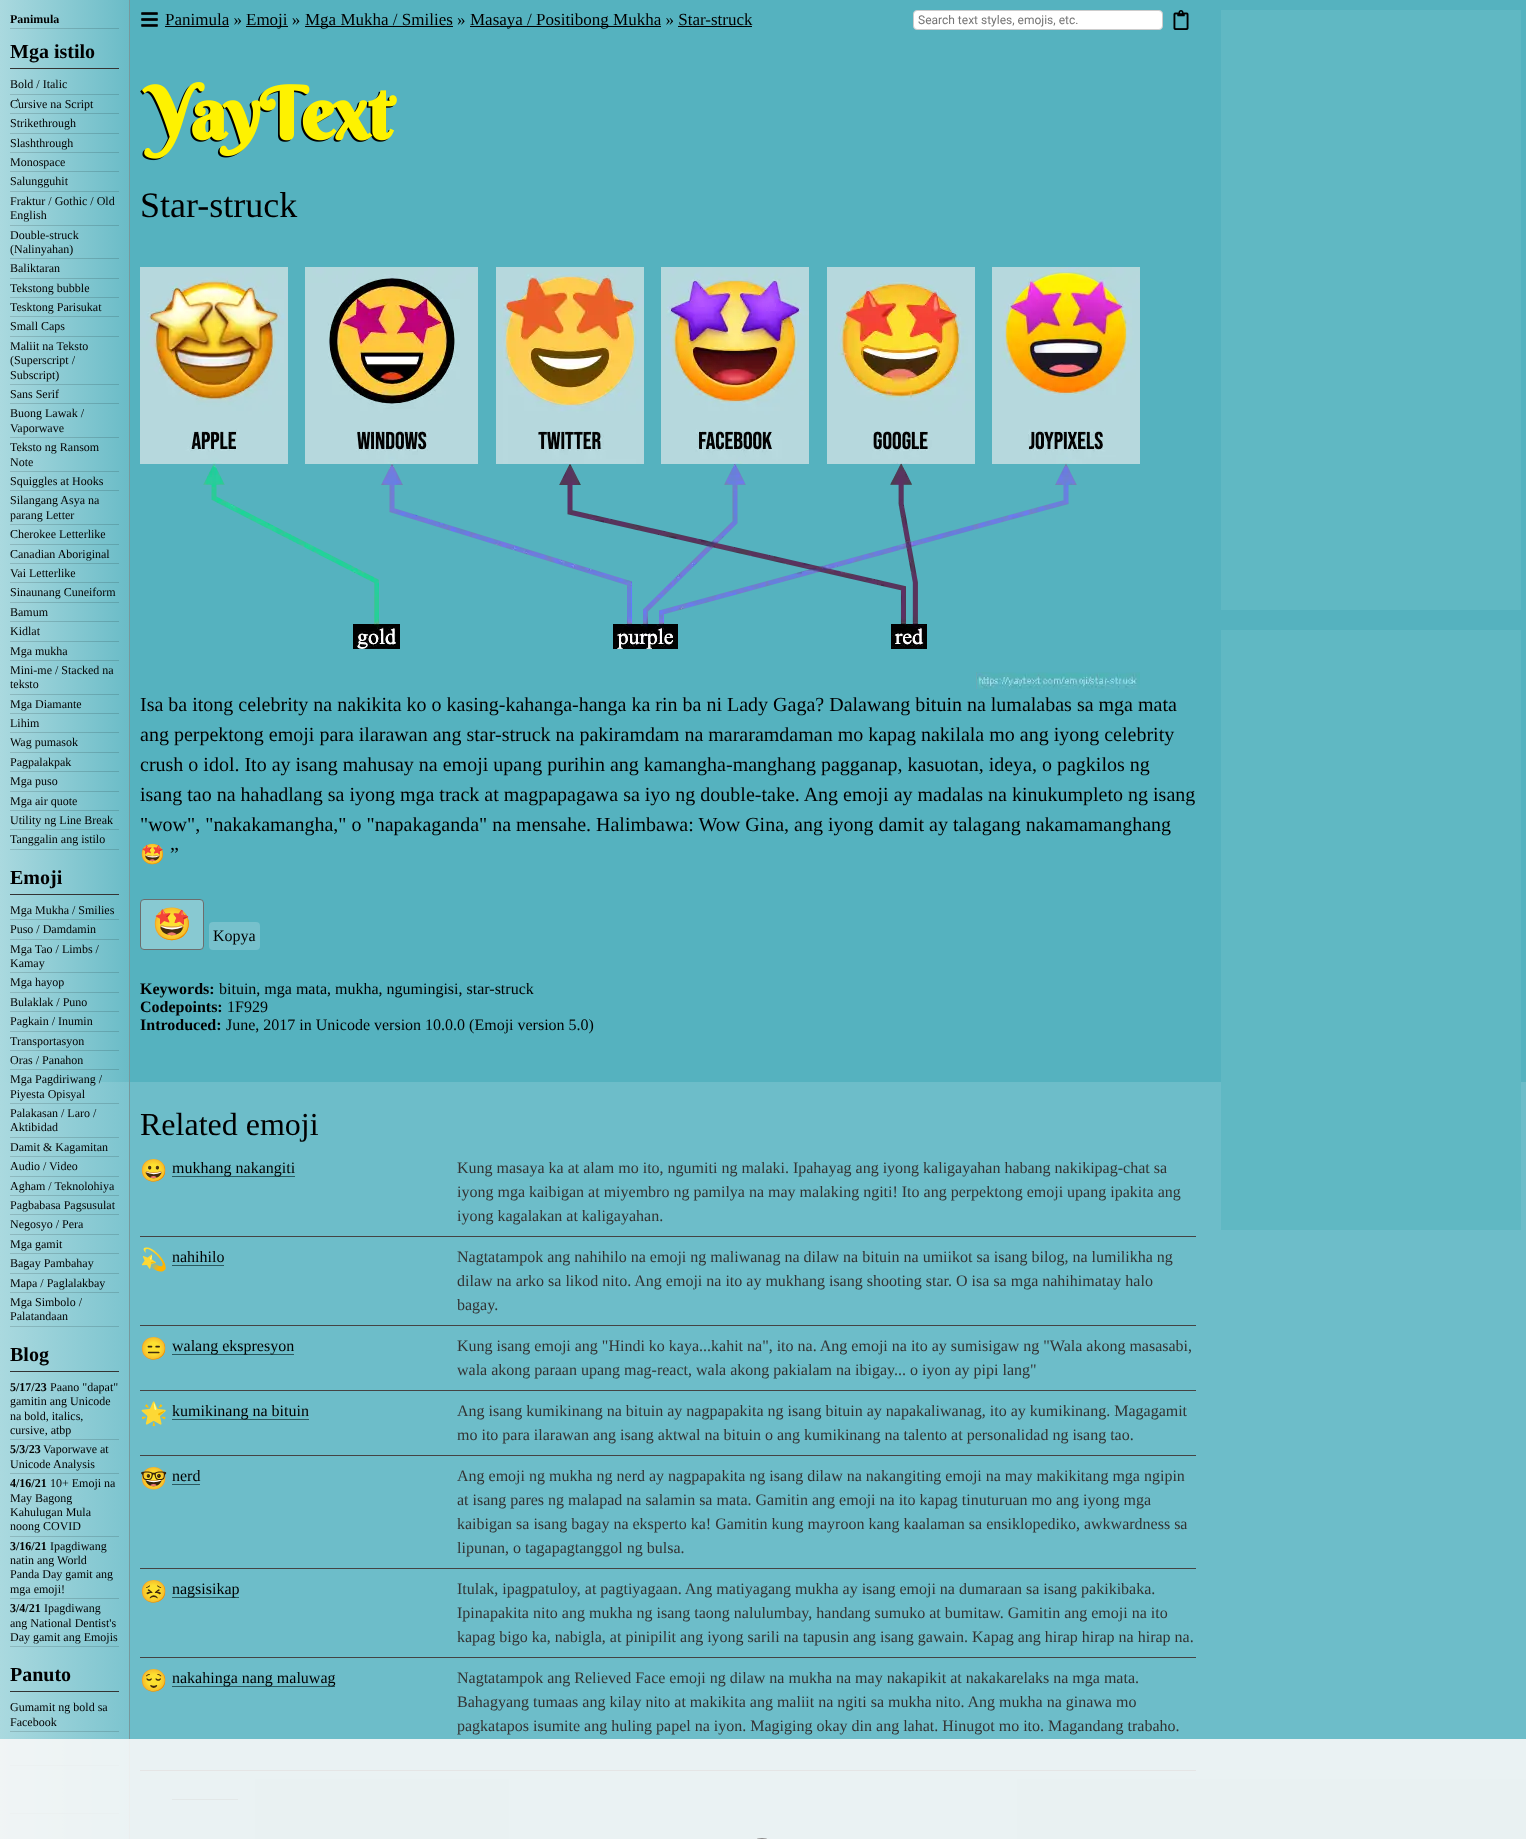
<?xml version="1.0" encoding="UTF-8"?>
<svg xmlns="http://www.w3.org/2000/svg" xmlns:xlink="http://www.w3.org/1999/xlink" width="1526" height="1839">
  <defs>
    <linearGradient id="g1" gradientUnits="userSpaceOnUse" x1="0" y1="920" x2="129" y2="920"><stop offset="0" stop-color="#aad9df" /><stop offset="1" stop-color="#aad9df" stop-opacity="0.25" /></linearGradient>
  </defs>
  <rect width="100%" height="100%" fill="#55b2bf" />
  <rect x="1" y="1082" width="1525" height="757" fill="#6dbdc9" />
  <rect width="129" height="1839" fill="url(#g1)" />
  <rect x="129" width="1" height="1839" fill="#77989c" />
  <rect x="10" y="28" width="109" height="1" fill="#000000" fill-opacity="0.14" />
  <rect x="10" y="68" width="109" height="1" fill="#333333" />
  <rect x="10" y="94" width="109" height="1" fill="#000000" fill-opacity="0.14" />
  <rect x="10" y="113" width="109" height="1" fill="#000000" fill-opacity="0.14" />
  <rect x="10" y="133" width="109" height="1" fill="#000000" fill-opacity="0.14" />
  <rect x="10" y="152" width="109" height="1" fill="#000000" fill-opacity="0.14" />
  <rect x="10" y="171" width="109" height="1" fill="#000000" fill-opacity="0.14" />
  <rect x="10" y="191" width="109" height="1" fill="#000000" fill-opacity="0.14" />
  <rect x="10" y="225" width="109" height="1" fill="#000000" fill-opacity="0.14" />
  <rect x="10" y="258" width="109" height="1" fill="#000000" fill-opacity="0.14" />
  <rect x="10" y="278" width="109" height="1" fill="#000000" fill-opacity="0.14" />
  <rect x="10" y="297" width="109" height="1" fill="#000000" fill-opacity="0.14" />
  <rect x="10" y="316" width="109" height="1" fill="#000000" fill-opacity="0.14" />
  <rect x="10" y="336" width="109" height="1" fill="#000000" fill-opacity="0.14" />
  <rect x="10" y="384" width="109" height="1" fill="#000000" fill-opacity="0.14" />
  <rect x="10" y="403" width="109" height="1" fill="#000000" fill-opacity="0.14" />
  <rect x="10" y="437" width="109" height="1" fill="#000000" fill-opacity="0.14" />
  <rect x="10" y="471" width="109" height="1" fill="#000000" fill-opacity="0.14" />
  <rect x="10" y="490" width="109" height="1" fill="#000000" fill-opacity="0.14" />
  <rect x="10" y="524" width="109" height="1" fill="#000000" fill-opacity="0.14" />
  <rect x="10" y="544" width="109" height="1" fill="#000000" fill-opacity="0.14" />
  <rect x="10" y="563" width="109" height="1" fill="#000000" fill-opacity="0.14" />
  <rect x="10" y="582" width="109" height="1" fill="#000000" fill-opacity="0.14" />
  <rect x="10" y="602" width="109" height="1" fill="#000000" fill-opacity="0.14" />
  <rect x="10" y="621" width="109" height="1" fill="#000000" fill-opacity="0.14" />
  <rect x="10" y="641" width="109" height="1" fill="#000000" fill-opacity="0.14" />
  <rect x="10" y="660" width="109" height="1" fill="#000000" fill-opacity="0.14" />
  <rect x="10" y="694" width="109" height="1" fill="#000000" fill-opacity="0.14" />
  <rect x="10" y="713" width="109" height="1" fill="#000000" fill-opacity="0.14" />
  <rect x="10" y="732" width="109" height="1" fill="#000000" fill-opacity="0.14" />
  <rect x="10" y="752" width="109" height="1" fill="#000000" fill-opacity="0.14" />
  <rect x="10" y="771" width="109" height="1" fill="#000000" fill-opacity="0.14" />
  <rect x="10" y="791" width="109" height="1" fill="#000000" fill-opacity="0.14" />
  <rect x="10" y="810" width="109" height="1" fill="#000000" fill-opacity="0.14" />
  <rect x="10" y="829" width="109" height="1" fill="#000000" fill-opacity="0.14" />
  <rect x="10" y="849" width="109" height="1" fill="#000000" fill-opacity="0.14" />
  <rect x="10" y="894" width="109" height="1" fill="#333333" />
  <rect x="10" y="919" width="109" height="1" fill="#000000" fill-opacity="0.14" />
  <rect x="10" y="939" width="109" height="1" fill="#000000" fill-opacity="0.14" />
  <rect x="10" y="972" width="109" height="1" fill="#000000" fill-opacity="0.14" />
  <rect x="10" y="992" width="109" height="1" fill="#000000" fill-opacity="0.14" />
  <rect x="10" y="1011" width="109" height="1" fill="#000000" fill-opacity="0.14" />
  <rect x="10" y="1031" width="109" height="1" fill="#000000" fill-opacity="0.14" />
  <rect x="10" y="1050" width="109" height="1" fill="#000000" fill-opacity="0.14" />
  <rect x="10" y="1069" width="109" height="1" fill="#000000" fill-opacity="0.14" />
  <rect x="10" y="1103" width="109" height="1" fill="#000000" fill-opacity="0.14" />
  <rect x="10" y="1137" width="109" height="1" fill="#000000" fill-opacity="0.14" />
  <rect x="10" y="1156" width="109" height="1" fill="#000000" fill-opacity="0.14" />
  <rect x="10" y="1176" width="109" height="1" fill="#000000" fill-opacity="0.14" />
  <rect x="10" y="1195" width="109" height="1" fill="#000000" fill-opacity="0.14" />
  <rect x="10" y="1214" width="109" height="1" fill="#000000" fill-opacity="0.14" />
  <rect x="10" y="1234" width="109" height="1" fill="#000000" fill-opacity="0.14" />
  <rect x="10" y="1253" width="109" height="1" fill="#000000" fill-opacity="0.14" />
  <rect x="10" y="1273" width="109" height="1" fill="#000000" fill-opacity="0.14" />
  <rect x="10" y="1292" width="109" height="1" fill="#000000" fill-opacity="0.14" />
  <rect x="10" y="1326" width="109" height="1" fill="#000000" fill-opacity="0.14" />
  <rect x="10" y="1371" width="109" height="1" fill="#333333" />
  <rect x="10" y="1439" width="109" height="1" fill="#000000" fill-opacity="0.14" />
  <rect x="10" y="1473" width="109" height="1" fill="#000000" fill-opacity="0.14" />
  <rect x="10" y="1536" width="109" height="1" fill="#000000" fill-opacity="0.14" />
  <rect x="10" y="1598" width="109" height="1" fill="#000000" fill-opacity="0.14" />
  <rect x="10" y="1646" width="109" height="1" fill="#000000" fill-opacity="0.14" />
  <rect x="10" y="1691" width="109" height="1" fill="#333333" />
  <rect x="10" y="1731" width="109" height="1" fill="#000000" fill-opacity="0.14" />
  <rect x="10" y="1765" width="109" height="1" fill="#000000" fill-opacity="0.14" />
  <rect x="10" y="1813" width="109" height="1" fill="#000000" fill-opacity="0.14" />
  <image x="141" y="12" width="17" height="15" xlink:href="image1.png" />
  <rect x="165" y="26" width="64" height="1" fill="#000000" />
  <rect x="246" y="26" width="42" height="1" fill="#000000" />
  <rect x="305" y="26" width="148" height="1" fill="#000000" />
  <rect x="470" y="26" width="191" height="1" fill="#000000" />
  <rect x="678" y="26" width="74" height="1" fill="#000000" />
  <rect x="913.5" y="10.5" width="249" height="19" rx="3.5" fill="#ffffff" stroke="#cccccc" />
  <image x="1173" y="10" width="16" height="20" xlink:href="image2.png" />
  <image x="140" y="82" width="257" height="79" xlink:href="image3.png" />
  <image x="140" y="267" width="1000" height="422" xlink:href="image4.png" />
  <rect x="140.5" y="899.5" width="63" height="50" rx="3.5" fill="#88c9d2" stroke="#6d6d6d" />
  <rect x="209" y="922" width="51" height="28" rx="4" fill="#77c1cc" />
  <rect x="140" y="1236" width="1056" height="1" fill="#444444" />
  <rect x="172" y="1176" width="123" height="1" fill="#2a595f" />
  <rect x="140" y="1325" width="1056" height="1" fill="#444444" />
  <rect x="172" y="1265" width="52" height="1" fill="#2a595f" />
  <rect x="140" y="1390" width="1056" height="1" fill="#444444" />
  <rect x="172" y="1354" width="122" height="1" fill="#2a595f" />
  <rect x="140" y="1455" width="1056" height="1" fill="#444444" />
  <rect x="172" y="1419" width="137" height="1" fill="#2a595f" />
  <rect x="140" y="1568" width="1056" height="1" fill="#444444" />
  <rect x="172" y="1484" width="28" height="1" fill="#2a595f" />
  <rect x="140" y="1657" width="1056" height="1" fill="#444444" />
  <rect x="172" y="1597" width="67" height="1" fill="#2a595f" />
  <rect x="140" y="1770" width="1056" height="1" fill="#444444" />
  <rect x="172" y="1686" width="163" height="1" fill="#2a595f" />
  <rect x="172" y="1799" width="66" height="1" fill="#2a595f" />
  <rect x="1221" y="10" width="300" height="600" fill="#60b8c3" />
  <rect x="1221" y="630" width="300" height="600" fill="#60b8c3" />
  <rect y="1739" width="1526" height="100" fill="#f7f7f7" fill-opacity="0.9" />
  <rect x="751.5" y="1838.5" width="21" height="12" rx="10.5" fill="none" stroke="#f7f7f7" stroke-opacity="0.75" />
  <rect x="751.5" y="1838.5" width="21" height="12" rx="10.5" fill="none" stroke="#888888" />
  <text x="10" y="23" style="font-family: Liberation Serif; font-size: 12px; font-weight: bold; fill: #000000">Panimula</text>
  <text x="10" y="58" style="font-family: Liberation Serif; font-size: 20px; font-weight: bold; fill: #000000">Mga istilo</text>
  <text x="10" y="88" style="font-family: Liberation Serif; font-size: 12px; fill: #000000">Bold / Italic</text>
  <text x="10" y="108" style="font-family: Liberation Serif; font-size: 12px; fill: #000000">C͛ursive na Script</text>
  <text x="10" y="127" style="font-family: Liberation Serif; font-size: 12px; fill: #000000">Strikethrough</text>
  <text x="10" y="147" style="font-family: Liberation Serif; font-size: 12px; fill: #000000">Slashthrough</text>
  <text x="10" y="166" style="font-family: Liberation Serif; font-size: 12px; fill: #000000">Monospace</text>
  <text x="10" y="185" style="font-family: Liberation Serif; font-size: 12px; fill: #000000">Salungguhit</text>
  <text x="10" y="205" style="font-family: Liberation Serif; font-size: 12px; fill: #000000">Fraktur / Gothic / Old</text>
  <text x="10" y="219" style="font-family: Liberation Serif; font-size: 12px; fill: #000000">English</text>
  <text x="10" y="239" style="font-family: Liberation Serif; font-size: 12px; fill: #000000">Double-struck</text>
  <text x="10" y="253" style="font-family: Liberation Serif; font-size: 12px; fill: #000000">(Nalinyahan)</text>
  <text x="10" y="272" style="font-family: Liberation Serif; font-size: 12px; fill: #000000">Baliktaran</text>
  <text x="10" y="292" style="font-family: Liberation Serif; font-size: 12px; fill: #000000">Tekstong bubble</text>
  <text x="10" y="311" style="font-family: Liberation Serif; font-size: 12px; fill: #000000">Tesktong Parisukat</text>
  <text x="10" y="330" style="font-family: Liberation Serif; font-size: 12px; fill: #000000">Small Caps</text>
  <text x="10" y="350" style="font-family: Liberation Serif; font-size: 12px; fill: #000000">Maliit na Teksto</text>
  <text x="10" y="364" style="font-family: Liberation Serif; font-size: 12px; fill: #000000">(Superscript /</text>
  <text x="10" y="379" style="font-family: Liberation Serif; font-size: 12px; fill: #000000">Subscript)</text>
  <text x="10" y="398" style="font-family: Liberation Serif; font-size: 12px; fill: #000000">Sans Serif</text>
  <text x="10" y="417" style="font-family: Liberation Serif; font-size: 12px; fill: #000000">Buong Lawak /</text>
  <text x="10" y="432" style="font-family: Liberation Serif; font-size: 12px; fill: #000000">Vaporwave</text>
  <text x="10" y="451" style="font-family: Liberation Serif; font-size: 12px; fill: #000000">Teksto ng Ransom</text>
  <text x="10" y="466" style="font-family: Liberation Serif; font-size: 12px; fill: #000000">Note</text>
  <text x="10" y="485" style="font-family: Liberation Serif; font-size: 12px; fill: #000000">Squiggles at Hooks</text>
  <text x="10" y="504" style="font-family: Liberation Serif; font-size: 12px; fill: #000000">Silangang Asya na</text>
  <text x="10" y="519" style="font-family: Liberation Serif; font-size: 12px; fill: #000000">parang Letter</text>
  <text x="10" y="538" style="font-family: Liberation Serif; font-size: 12px; fill: #000000">Cherokee Letterlike</text>
  <text x="10" y="558" style="font-family: Liberation Serif; font-size: 12px; fill: #000000">Canadian Aboriginal</text>
  <text x="10" y="577" style="font-family: Liberation Serif; font-size: 12px; fill: #000000">Vai Letterlike</text>
  <text x="10" y="596" style="font-family: Liberation Serif; font-size: 12px; fill: #000000">Sinaunang Cuneiform</text>
  <text x="10" y="616" style="font-family: Liberation Serif; font-size: 12px; fill: #000000">Bamum</text>
  <text x="10" y="635" style="font-family: Liberation Serif; font-size: 12px; fill: #000000">Kidlat</text>
  <text x="10" y="655" style="font-family: Liberation Serif; font-size: 12px; fill: #000000">Mga mukha</text>
  <text x="10" y="674" style="font-family: Liberation Serif; font-size: 12px; fill: #000000">Mini-me / Stacked na</text>
  <text x="10" y="688" style="font-family: Liberation Serif; font-size: 12px; fill: #000000">teksto</text>
  <text x="10" y="708" style="font-family: Liberation Serif; font-size: 12px; fill: #000000">Mga Diamante</text>
  <text x="10" y="727" style="font-family: Liberation Serif; font-size: 12px; fill: #000000">Lihim</text>
  <text x="10" y="746" style="font-family: Liberation Serif; font-size: 12px; fill: #000000">Wag pumasok</text>
  <text x="10" y="766" style="font-family: Liberation Serif; font-size: 12px; fill: #000000">Pagpalakpak</text>
  <text x="10" y="785" style="font-family: Liberation Serif; font-size: 12px; fill: #000000">Mga puso</text>
  <text x="10" y="805" style="font-family: Liberation Serif; font-size: 12px; fill: #000000">Mga air quote</text>
  <text x="10" y="824" style="font-family: Liberation Serif; font-size: 12px; fill: #000000">Utility ng Line Break</text>
  <text x="10" y="843" style="font-family: Liberation Serif; font-size: 12px; fill: #000000">Tanggalin ang istilo</text>
  <text x="10" y="884" style="font-family: Liberation Serif; font-size: 20px; font-weight: bold; fill: #000000">Emoji</text>
  <text x="10" y="914" style="font-family: Liberation Serif; font-size: 12px; fill: #000000">Mga Mukha / Smilies</text>
  <text x="10" y="933" style="font-family: Liberation Serif; font-size: 12px; fill: #000000">Puso / Damdamin</text>
  <text x="10" y="953" style="font-family: Liberation Serif; font-size: 12px; fill: #000000">Mga Tao / Limbs /</text>
  <text x="10" y="967" style="font-family: Liberation Serif; font-size: 12px; fill: #000000">Kamay</text>
  <text x="10" y="986" style="font-family: Liberation Serif; font-size: 12px; fill: #000000">Mga hayop</text>
  <text x="10" y="1006" style="font-family: Liberation Serif; font-size: 12px; fill: #000000">Bulaklak / Puno</text>
  <text x="10" y="1025" style="font-family: Liberation Serif; font-size: 12px; fill: #000000">Pagkain / Inumin</text>
  <text x="10" y="1045" style="font-family: Liberation Serif; font-size: 12px; fill: #000000">Transportasyon</text>
  <text x="10" y="1064" style="font-family: Liberation Serif; font-size: 12px; fill: #000000">Oras / Panahon</text>
  <text x="10" y="1083" style="font-family: Liberation Serif; font-size: 12px; fill: #000000">Mga Pagdiriwang /</text>
  <text x="10" y="1098" style="font-family: Liberation Serif; font-size: 12px; fill: #000000">Piyesta Opisyal</text>
  <text x="10" y="1117" style="font-family: Liberation Serif; font-size: 12px; fill: #000000">Palakasan / Laro /</text>
  <text x="10" y="1131" style="font-family: Liberation Serif; font-size: 12px; fill: #000000">Aktibidad</text>
  <text x="10" y="1151" style="font-family: Liberation Serif; font-size: 12px; fill: #000000">Damit &amp; Kagamitan</text>
  <text x="10" y="1170" style="font-family: Liberation Serif; font-size: 12px; fill: #000000">Audio / Video</text>
  <text x="10" y="1190" style="font-family: Liberation Serif; font-size: 12px; fill: #000000">Agham / Teknolohiya</text>
  <text x="10" y="1209" style="font-family: Liberation Serif; font-size: 12px; fill: #000000">Pagbabasa Pagsusulat</text>
  <text x="10" y="1228" style="font-family: Liberation Serif; font-size: 12px; fill: #000000">Negosyo / Pera</text>
  <text x="10" y="1248" style="font-family: Liberation Serif; font-size: 12px; fill: #000000">Mga gamit</text>
  <text x="10" y="1267" style="font-family: Liberation Serif; font-size: 12px; fill: #000000">Bagay Pambahay</text>
  <text x="10" y="1287" style="font-family: Liberation Serif; font-size: 12px; fill: #000000">Mapa / Paglalakbay</text>
  <text x="10" y="1306" style="font-family: Liberation Serif; font-size: 12px; fill: #000000">Mga Simbolo /</text>
  <text x="10" y="1320" style="font-family: Liberation Serif; font-size: 12px; fill: #000000">Palatandaan</text>
  <text x="10" y="1361" style="font-family: Liberation Serif; font-size: 20px; font-weight: bold; fill: #000000">Blog</text>
  <text x="10" y="1391" style="font-family: Liberation Serif; font-size: 12px; font-weight: bold; fill: #000000">5/17/23</text>
  <text x="50" y="1391" style="font-family: Liberation Serif; font-size: 12px; fill: #000000">Paano "dapat"</text>
  <text x="10" y="1405" style="font-family: Liberation Serif; font-size: 12px; fill: #000000">gamitin ang Unicode</text>
  <text x="10" y="1420" style="font-family: Liberation Serif; font-size: 12px; fill: #000000">na bold, italics,</text>
  <text x="10" y="1434" style="font-family: Liberation Serif; font-size: 12px; fill: #000000">cursive, atbp</text>
  <text x="10" y="1453" style="font-family: Liberation Serif; font-size: 12px; font-weight: bold; fill: #000000">5/3/23</text>
  <text x="43" y="1453" style="font-family: Liberation Serif; font-size: 12px; fill: #000000">Vaporwave at</text>
  <text x="10" y="1468" style="font-family: Liberation Serif; font-size: 12px; fill: #000000">Unicode Analysis</text>
  <text x="10" y="1487" style="font-family: Liberation Serif; font-size: 12px; font-weight: bold; fill: #000000">4/16/21</text>
  <text x="50" y="1487" style="font-family: Liberation Serif; font-size: 12px; fill: #000000">10+ Emoji na</text>
  <text x="10" y="1502" style="font-family: Liberation Serif; font-size: 12px; fill: #000000">May Bagong</text>
  <text x="10" y="1516" style="font-family: Liberation Serif; font-size: 12px; fill: #000000">Kahulugan Mula</text>
  <text x="10" y="1530" style="font-family: Liberation Serif; font-size: 12px; fill: #000000">noong COVID</text>
  <text x="10" y="1550" style="font-family: Liberation Serif; font-size: 12px; font-weight: bold; fill: #000000">3/16/21</text>
  <text x="50" y="1550" style="font-family: Liberation Serif; font-size: 12px; fill: #000000">Ipagdiwang</text>
  <text x="10" y="1564" style="font-family: Liberation Serif; font-size: 12px; fill: #000000">natin ang World</text>
  <text x="10" y="1578" style="font-family: Liberation Serif; font-size: 12px; fill: #000000">Panda Day gamit ang</text>
  <text x="10" y="1593" style="font-family: Liberation Serif; font-size: 12px; fill: #000000">mga emoji!</text>
  <text x="10" y="1612" style="font-family: Liberation Serif; font-size: 12px; font-weight: bold; fill: #000000">3/4/21</text>
  <text x="44" y="1612" style="font-family: Liberation Serif; font-size: 12px; fill: #000000">Ipagdiwang</text>
  <text x="10" y="1627" style="font-family: Liberation Serif; font-size: 12px; fill: #000000">ang National Dentist's</text>
  <text x="10" y="1641" style="font-family: Liberation Serif; font-size: 12px; fill: #000000">Day gamit ang Emojis</text>
  <text x="10" y="1681" style="font-family: Liberation Serif; font-size: 20px; font-weight: bold; fill: #000000">Panuto</text>
  <text x="10" y="1711" style="font-family: Liberation Serif; font-size: 12px; fill: #000000">Gumamit ng bold sa</text>
  <text x="10" y="1726" style="font-family: Liberation Serif; font-size: 12px; fill: #000000">Facebook</text>
  <text x="165" y="25" style="font-family: Liberation Serif; font-size: 17px; fill: #000000">Panimula »</text>
  <text x="246" y="25" style="font-family: Liberation Serif; font-size: 17px; fill: #000000">Emoji »</text>
  <text x="305" y="25" style="font-family: Liberation Serif; font-size: 17px; fill: #000000">Mga Mukha / Smilies »</text>
  <text x="470" y="25" style="font-family: Liberation Serif; font-size: 17px; fill: #000000">Masaya / Positibong Mukha » Star-struck</text>
  <text x="918" y="24" style="font-family: Roboto; font-size: 12px; fill: #757575">Search text styles, emojis, etc.</text>
  <text x="140" y="217" style="font-family: Liberation Serif; font-size: 36px; fill: #000000">Star-struck</text>
  <text x="140" y="711" style="font-family: Liberation Serif; font-size: 20px; fill: #000000">Isa ba itong celebrity na nakikita ko o kasing-kahanga-hanga ka rin ba ni Lady Gaga? Dalawang bituin na lumalabas sa mga mata</text>
  <text x="140" y="741" style="font-family: Liberation Serif; font-size: 20px; fill: #000000">ang perpektong emoji para ilarawan ang star-struck na pakiramdam na mararamdaman mo kapag nakilala mo ang iyong celebrity</text>
  <text x="140" y="771" style="font-family: Liberation Serif; font-size: 20px; fill: #000000">crush o idol. Ito ay isang mahusay na emoji upang purihin ang kamangha-manghang pagganap, kasuotan, ideya, o pagkilos ng</text>
  <text x="140" y="801" style="font-family: Liberation Serif; font-size: 20px; fill: #000000">isang tao na hahadlang sa iyong mga track at magpapagawa sa iyo ng double-take. Ang emoji ay madalas na kinukumpleto ng isang</text>
  <text x="140" y="831" style="font-family: Liberation Serif; font-size: 20px; fill: #000000">"wow", "nakakamangha," o "napakaganda" na mensahe. Halimbawa: Wow Gina, ang iyong damit ay talagang nakamamanghang</text>
  <text x="140" y="861" style="font-family: Noto Color Emoji; font-size: 20px; fill: #000000">🤩</text>
  <text x="170" y="861" style="font-family: Liberation Serif; font-size: 20px; fill: #000000">”</text>
  <text x="152" y="935" style="font-family: Noto Color Emoji; font-size: 32px; fill: #000000">🤩</text>
  <text x="213" y="941" style="font-family: Liberation Serif; font-size: 16px; fill: #000000">Kopya</text>
  <text x="140" y="994" style="font-family: Liberation Serif; font-size: 16px; font-weight: bold; fill: #000000">Keywords:</text>
  <text x="219" y="994" style="font-family: Liberation Serif; font-size: 16px; fill: #000000">bituin, mga mata, mukha, ngumingisi, star-struck</text>
  <text x="140" y="1012" style="font-family: Liberation Serif; font-size: 16px; font-weight: bold; fill: #000000">Codepoints:</text>
  <text x="227" y="1012" style="font-family: Liberation Serif; font-size: 16px; fill: #000000">1F929</text>
  <text x="140" y="1030" style="font-family: Liberation Serif; font-size: 16px; font-weight: bold; fill: #000000">Introduced:</text>
  <text x="226" y="1030" style="font-family: Liberation Serif; font-size: 16px; fill: #000000">June, 2017 in Unicode version 10.0.0 (Emoji version 5.0)</text>
  <text x="140" y="1135" style="font-family: Liberation Serif; font-size: 32px; fill: #000000">Related emoji</text>
  <text x="140" y="1178" style="font-family: Noto Color Emoji; font-size: 22px; fill: #000000">😀</text>
  <text x="172" y="1173" style="font-family: Liberation Serif; font-size: 16px; fill: #000000">mukhang nakangiti</text>
  <text x="457" y="1173" style="font-family: Liberation Serif; font-size: 16px; fill: #333333">Kung masaya ka at alam mo ito, ngumiti ng malaki. Ipahayag ang iyong kaligayahan habang nakikipag-chat sa</text>
  <text x="457" y="1197" style="font-family: Liberation Serif; font-size: 16px; fill: #333333">iyong mga kaibigan at miyembro ng pamilya na may malaking ngiti! Ito ang perpektong emoji upang ipakita ang</text>
  <text x="457" y="1221" style="font-family: Liberation Serif; font-size: 16px; fill: #333333">iyong kagalakan at kaligayahan.</text>
  <text x="140" y="1267" style="font-family: Noto Color Emoji; font-size: 22px; fill: #000000">💫</text>
  <text x="172" y="1262" style="font-family: Liberation Serif; font-size: 16px; fill: #000000">nahihilo</text>
  <text x="457" y="1262" style="font-family: Liberation Serif; font-size: 16px; fill: #333333">Nagtatampok ang nahihilo na emoji ng maliwanag na dilaw na bituin na umiikot sa isang bilog, na lumilikha ng</text>
  <text x="457" y="1286" style="font-family: Liberation Serif; font-size: 16px; fill: #333333">dilaw na arko sa likod nito. Ang emoji na ito ay mukhang isang shooting star. O isa sa mga nahihimatay halo</text>
  <text x="457" y="1310" style="font-family: Liberation Serif; font-size: 16px; fill: #333333">bagay.</text>
  <text x="140" y="1356" style="font-family: Noto Color Emoji; font-size: 22px; fill: #000000">😑</text>
  <text x="172" y="1351" style="font-family: Liberation Serif; font-size: 16px; fill: #000000">walang ekspresyon</text>
  <text x="457" y="1351" style="font-family: Liberation Serif; font-size: 16px; fill: #333333">Kung isang emoji ang "Hindi ko kaya...kahit na", ito na. Ang emoji na ito ay sumisigaw ng "Wala akong masasabi,</text>
  <text x="457" y="1375" style="font-family: Liberation Serif; font-size: 16px; fill: #333333">wala akong paraan upang mag-react, wala akong pakialam na ibigay... o iyon ay pipi lang"</text>
  <text x="140" y="1421" style="font-family: Noto Color Emoji; font-size: 22px; fill: #000000">🌟</text>
  <text x="172" y="1416" style="font-family: Liberation Serif; font-size: 16px; fill: #000000">kumikinang na bituin</text>
  <text x="457" y="1416" style="font-family: Liberation Serif; font-size: 16px; fill: #333333">Ang isang kumikinang na bituin ay nagpapakita ng isang bituin ay napakaliwanag, ito ay kumikinang. Magagamit</text>
  <text x="457" y="1440" style="font-family: Liberation Serif; font-size: 16px; fill: #333333">mo ito para ilarawan ang isang aktwal na bituin o ang kumikinang na talento at personalidad ng isang tao.</text>
  <text x="140" y="1486" style="font-family: Noto Color Emoji; font-size: 22px; fill: #000000">🤓</text>
  <text x="172" y="1481" style="font-family: Liberation Serif; font-size: 16px; fill: #000000">nerd</text>
  <text x="457" y="1481" style="font-family: Liberation Serif; font-size: 16px; fill: #333333">Ang emoji ng mukha ng nerd ay nagpapakita ng isang dilaw na nakangiting emoji na may makikitang mga ngipin</text>
  <text x="457" y="1505" style="font-family: Liberation Serif; font-size: 16px; fill: #333333">at isang pares ng malapad na salamin sa mata. Gamitin ang emoji na ito kapag tinuturuan mo ang iyong mga</text>
  <text x="457" y="1529" style="font-family: Liberation Serif; font-size: 16px; fill: #333333">kaibigan sa isang bagay na eksperto ka! Gamitin kung mayroon kang kaalaman sa ensiklopediko, awkwardness sa</text>
  <text x="457" y="1553" style="font-family: Liberation Serif; font-size: 16px; fill: #333333">lipunan, o tagapagtanggol ng bulsa.</text>
  <text x="140" y="1599" style="font-family: Noto Color Emoji; font-size: 22px; fill: #000000">😣</text>
  <text x="172" y="1594" style="font-family: Liberation Serif; font-size: 16px; fill: #000000">nagsisikap</text>
  <text x="457" y="1594" style="font-family: Liberation Serif; font-size: 16px; fill: #333333">Itulak, ipagpatuloy, at pagtiyagaan. Ang matiyagang mukha ay isang emoji na dumaraan sa isang pakikibaka.</text>
  <text x="457" y="1618" style="font-family: Liberation Serif; font-size: 16px; fill: #333333">Ipinapakita nito ang mukha ng isang taong nalulumbay, handang sumuko at bumitaw. Gamitin ang emoji na ito</text>
  <text x="457" y="1642" style="font-family: Liberation Serif; font-size: 16px; fill: #333333">kapag bigo ka, nabigla, at pinipilit ang iyong sarili na tapusin ang isang gawain. Kapag ang hirap hirap na hirap na.</text>
  <text x="140" y="1688" style="font-family: Noto Color Emoji; font-size: 22px; fill: #000000">😌</text>
  <text x="172" y="1683" style="font-family: Liberation Serif; font-size: 16px; fill: #000000">nakahinga nang maluwag</text>
  <text x="457" y="1683" style="font-family: Liberation Serif; font-size: 16px; fill: #333333">Nagtatampok ang Relieved Face emoji ng dilaw na mukha na may nakapikit at nakakarelaks na mga mata.</text>
  <text x="457" y="1707" style="font-family: Liberation Serif; font-size: 16px; fill: #333333">Bahagyang tumaas ang kilay nito at makikita ang maliit na ngiti sa mukha nito. Ang mukha na ginawa mo</text>
  <text x="457" y="1731" style="font-family: Liberation Serif; font-size: 16px; fill: #333333">pagkatapos isumite ang huling papel na iyon. Magiging okay din ang lahat. Hinugot mo ito. Magandang trabaho.</text>
</svg>
